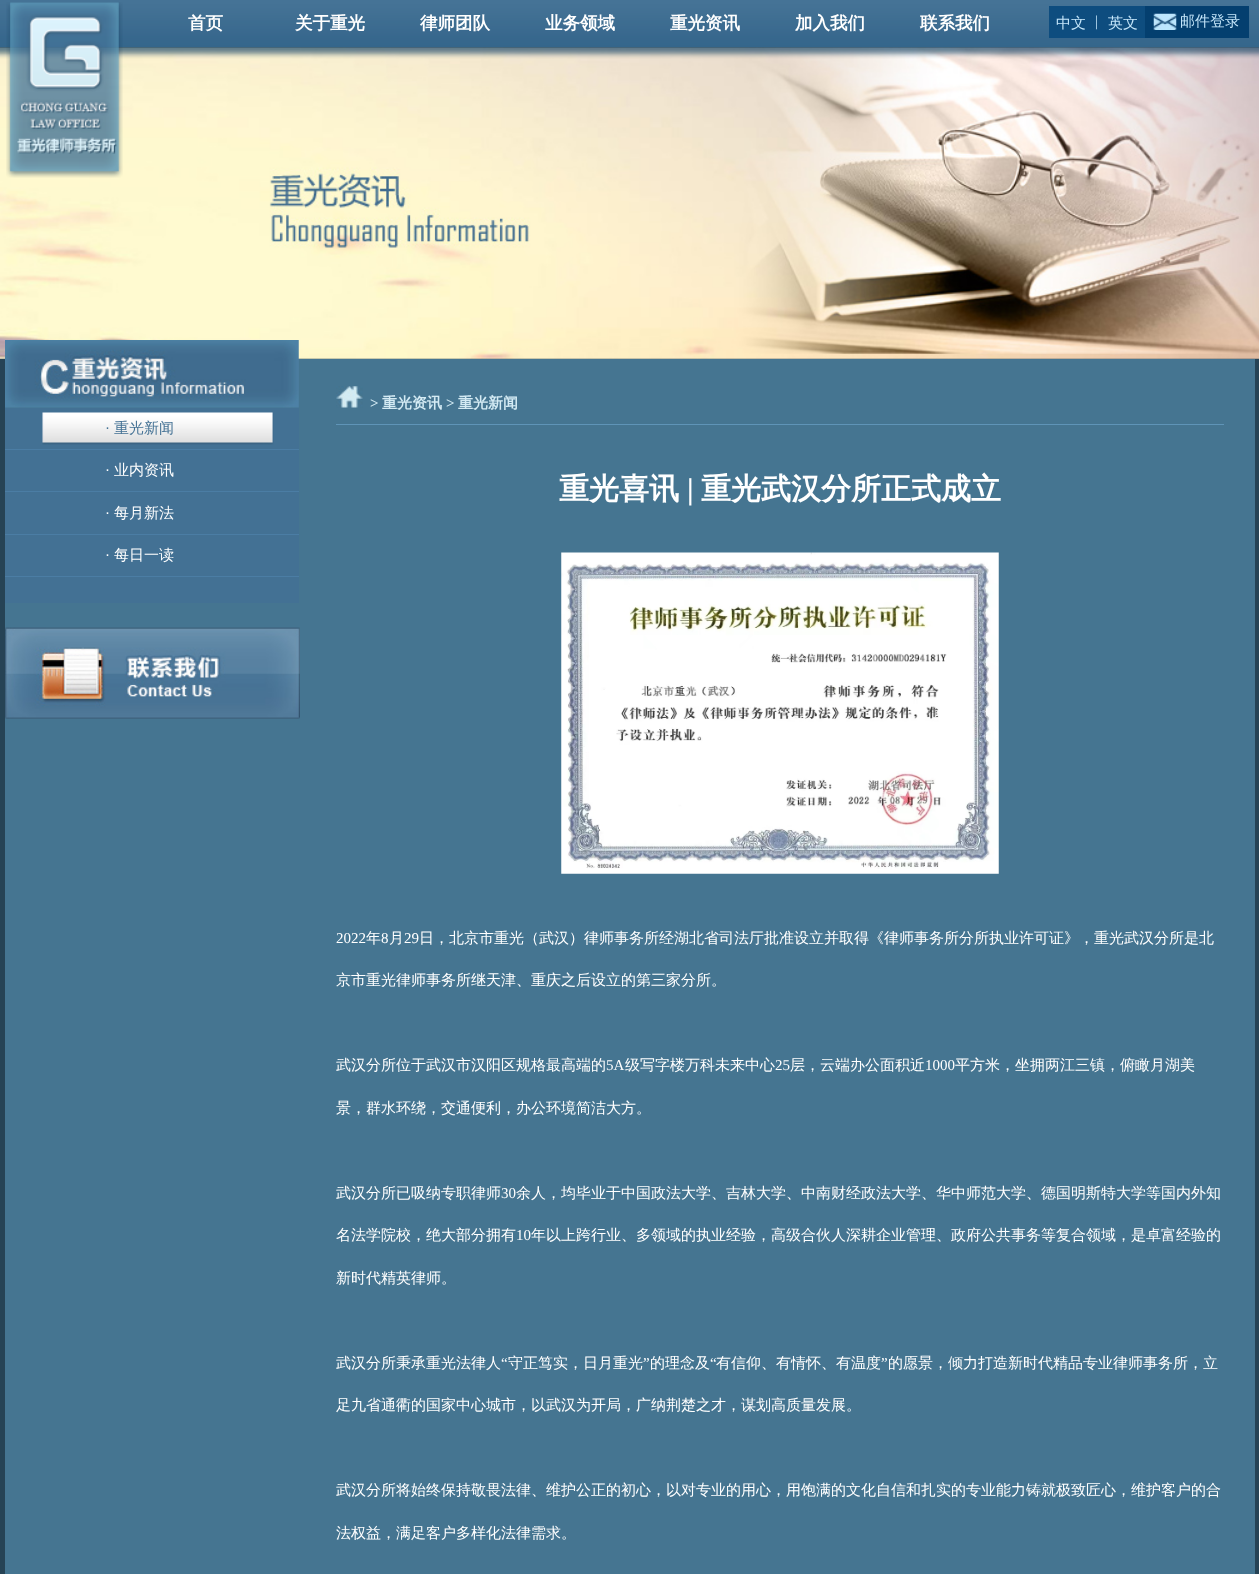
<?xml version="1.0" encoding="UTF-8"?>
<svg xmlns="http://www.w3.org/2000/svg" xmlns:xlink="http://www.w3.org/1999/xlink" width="1259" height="1574">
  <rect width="100%" height="100%" fill="#264355" />
  <image x="0" y="0" width="1259" height="48" xlink:href="image1.png" />
  <image x="0" y="47" width="1259" height="312" xlink:href="image4.png" />
  <image x="6" y="2" width="117" height="176" xlink:href="image2.png" />
  <rect x="1049" y="6" width="96" height="32" fill="#0e4d7f" />
  <rect x="1145" y="6" width="104" height="32" fill="#043f6f" />
  <image x="1153" y="13" width="24" height="17" xlink:href="image3.png" />
  <rect x="5" y="359" width="1250" height="1215" fill="#457591" />
  <image x="5" y="340" width="294" height="68" xlink:href="image5.png" />
  <rect x="5" y="408" width="294" height="195" fill="#437194" />
  <rect x="5" y="449" width="294" height="1" fill="#4b7da4" />
  <image x="42" y="412" width="232" height="33" xlink:href="image6.png" />
  <rect x="5" y="491" width="294" height="1" fill="#4b7da4" />
  <rect x="5" y="534" width="294" height="1" fill="#4b7da4" />
  <rect x="5" y="576" width="294" height="1" fill="#4b7da4" />
  <image x="5" y="627" width="295" height="92" xlink:href="image7.png" />
  <rect x="336" y="424" width="888" height="1" fill="#5f94b7" />
  <image x="336" y="386" width="27" height="22" xlink:href="image8.png" />
  <image x="561" y="552" width="438" height="322" xlink:href="image9.png" />
  <text x="188" y="29" style="font-family: WenQuanYi Zen Hei; font-size: 17.5px; font-weight: bold; fill: #ffffff">首页</text>
  <text x="295" y="29" style="font-family: WenQuanYi Zen Hei; font-size: 17.5px; font-weight: bold; fill: #ffffff">关于重光</text>
  <text x="420" y="29" style="font-family: WenQuanYi Zen Hei; font-size: 17.5px; font-weight: bold; fill: #ffffff">律师团队</text>
  <text x="545" y="29" style="font-family: WenQuanYi Zen Hei; font-size: 17.5px; font-weight: bold; fill: #ffffff">业务领域</text>
  <text x="670" y="29" style="font-family: WenQuanYi Zen Hei; font-size: 17.5px; font-weight: bold; fill: #ffffff">重光资讯</text>
  <text x="795" y="29" style="font-family: WenQuanYi Zen Hei; font-size: 17.5px; font-weight: bold; fill: #ffffff">加入我们</text>
  <text x="920" y="29" style="font-family: WenQuanYi Zen Hei; font-size: 17.5px; font-weight: bold; fill: #ffffff">联系我们</text>
  <text x="1056" y="28" style="font-family: WenQuanYi Zen Hei; font-size: 15px; font-weight: 500; fill: #c5e6fa">中文</text>
  <text x="1095" y="26" style="font-family: Liberation Serif; font-size: 15px; fill: #c5e6fa">|</text>
  <text x="1108" y="28" style="font-family: WenQuanYi Zen Hei; font-size: 15px; font-weight: 500; fill: #c5e6fa">英文</text>
  <text x="1180" y="26" style="font-family: WenQuanYi Zen Hei; font-size: 15px; font-weight: 500; fill: #c5e6fa">邮件登录</text>
  <text x="105" y="433" style="font-family: Liberation Serif; font-size: 15px; fill: #437194">·</text>
  <text x="114" y="433" style="font-family: WenQuanYi Zen Hei; font-size: 15px; font-weight: 500; fill: #437194">重光新闻</text>
  <text x="105" y="475" style="font-family: Liberation Serif; font-size: 15px; fill: #ffffff">·</text>
  <text x="114" y="475" style="font-family: WenQuanYi Zen Hei; font-size: 15px; font-weight: 500; fill: #ffffff">业内资讯</text>
  <text x="105" y="518" style="font-family: Liberation Serif; font-size: 15px; fill: #ffffff">·</text>
  <text x="114" y="518" style="font-family: WenQuanYi Zen Hei; font-size: 15px; font-weight: 500; fill: #ffffff">每月新法</text>
  <text x="105" y="560" style="font-family: Liberation Serif; font-size: 15px; fill: #ffffff">·</text>
  <text x="114" y="560" style="font-family: WenQuanYi Zen Hei; font-size: 15px; font-weight: 500; fill: #ffffff">每日一读</text>
  <text x="370" y="408" style="font-family: Liberation Serif; font-size: 15px; font-weight: bold; fill: #d4ebf4">&gt;</text>
  <text x="382" y="408" style="font-family: WenQuanYi Zen Hei; font-size: 15px; font-weight: bold; fill: #d4ebf4">重光资讯</text>
  <text x="446" y="408" style="font-family: Liberation Serif; font-size: 15px; font-weight: bold; fill: #d4ebf4">&gt;</text>
  <text x="458" y="408" style="font-family: WenQuanYi Zen Hei; font-size: 15px; font-weight: bold; fill: #d4ebf4">重光新闻</text>
  <text x="559" y="499" style="font-family: WenQuanYi Zen Hei; font-size: 30px; font-weight: bold; fill: #ffffff">重光喜讯</text>
  <text x="687" y="499" style="font-family: Liberation Serif; font-size: 30px; font-weight: bold; fill: #ffffff">|</text>
  <text x="701" y="499" style="font-family: WenQuanYi Zen Hei; font-size: 30px; font-weight: bold; fill: #ffffff">重光武汉分所正式成立</text>
  <text x="336" y="943" style="font-family: Liberation Serif; font-size: 15px; fill: #ffffff">2022</text>
  <text x="366" y="943" style="font-family: WenQuanYi Zen Hei; font-size: 15px; font-weight: 500; fill: #ffffff">年</text>
  <text x="381" y="943" style="font-family: Liberation Serif; font-size: 15px; fill: #ffffff">8</text>
  <text x="389" y="943" style="font-family: WenQuanYi Zen Hei; font-size: 15px; font-weight: 500; fill: #ffffff">月</text>
  <text x="404" y="943" style="font-family: Liberation Serif; font-size: 15px; fill: #ffffff">29</text>
  <text x="419" y="943" style="font-family: WenQuanYi Zen Hei; font-size: 15px; font-weight: 500; fill: #ffffff">日，北京市重光（武汉）律师事务所经湖北省司法厅批准设立并取得《律师事务所分所执业许可证》，重光武汉分所是北</text>
  <text x="336" y="985" style="font-family: WenQuanYi Zen Hei; font-size: 15px; font-weight: 500; fill: #ffffff">京市重光律师事务所继天津、重庆之后设立的第三家分所。</text>
  <text x="336" y="1070" style="font-family: WenQuanYi Zen Hei; font-size: 15px; font-weight: 500; fill: #ffffff">武汉分所位于武汉市汉阳区规格最高端的</text>
  <text x="606" y="1070" style="font-family: Liberation Serif; font-size: 15px; fill: #ffffff">5A</text>
  <text x="625" y="1070" style="font-family: WenQuanYi Zen Hei; font-size: 15px; font-weight: 500; fill: #ffffff">级写字楼万科未来中心</text>
  <text x="775" y="1070" style="font-family: Liberation Serif; font-size: 15px; fill: #ffffff">25</text>
  <text x="790" y="1070" style="font-family: WenQuanYi Zen Hei; font-size: 15px; font-weight: 500; fill: #ffffff">层，云端办公面积近</text>
  <text x="925" y="1070" style="font-family: Liberation Serif; font-size: 15px; fill: #ffffff">1000</text>
  <text x="955" y="1070" style="font-family: WenQuanYi Zen Hei; font-size: 15px; font-weight: 500; fill: #ffffff">平方米，坐拥两江三镇，俯瞰月湖美</text>
  <text x="336" y="1113" style="font-family: WenQuanYi Zen Hei; font-size: 15px; font-weight: 500; fill: #ffffff">景，群水环绕，交通便利，办公环境简洁大方。</text>
  <text x="336" y="1198" style="font-family: WenQuanYi Zen Hei; font-size: 15px; font-weight: 500; fill: #ffffff">武汉分所已吸纳专职律师</text>
  <text x="501" y="1198" style="font-family: Liberation Serif; font-size: 15px; fill: #ffffff">30</text>
  <text x="516" y="1198" style="font-family: WenQuanYi Zen Hei; font-size: 15px; font-weight: 500; fill: #ffffff">余人，均毕业于中国政法大学、吉林大学、中南财经政法大学、华中师范大学、德国明斯特大学等国内外知</text>
  <text x="336" y="1240" style="font-family: WenQuanYi Zen Hei; font-size: 15px; font-weight: 500; fill: #ffffff">名法学院校，绝大部分拥有</text>
  <text x="516" y="1240" style="font-family: Liberation Serif; font-size: 15px; fill: #ffffff">10</text>
  <text x="531" y="1240" style="font-family: WenQuanYi Zen Hei; font-size: 15px; font-weight: 500; fill: #ffffff">年以上跨行业、多领域的执业经验，高级合伙人深耕企业管理、政府公共事务等复合领域，是卓富经验的</text>
  <text x="336" y="1283" style="font-family: WenQuanYi Zen Hei; font-size: 15px; font-weight: 500; fill: #ffffff">新时代精英律师。</text>
  <text x="336" y="1368" style="font-family: WenQuanYi Zen Hei; font-size: 15px; font-weight: 500; fill: #ffffff">武汉分所秉承重光法律人</text>
  <text x="501" y="1368" style="font-family: Liberation Serif; font-size: 15px; fill: #ffffff">“</text>
  <text x="508" y="1368" style="font-family: WenQuanYi Zen Hei; font-size: 15px; font-weight: 500; fill: #ffffff">守正笃实，日月重光</text>
  <text x="643" y="1368" style="font-family: Liberation Serif; font-size: 15px; fill: #ffffff">”</text>
  <text x="650" y="1368" style="font-family: WenQuanYi Zen Hei; font-size: 15px; font-weight: 500; fill: #ffffff">的理念及</text>
  <text x="710" y="1368" style="font-family: Liberation Serif; font-size: 15px; fill: #ffffff">“</text>
  <text x="716" y="1368" style="font-family: WenQuanYi Zen Hei; font-size: 15px; font-weight: 500; fill: #ffffff">有信仰、有情怀、有温度</text>
  <text x="881" y="1368" style="font-family: Liberation Serif; font-size: 15px; fill: #ffffff">”</text>
  <text x="888" y="1368" style="font-family: WenQuanYi Zen Hei; font-size: 15px; font-weight: 500; fill: #ffffff">的愿景，倾力打造新时代精品专业律师事务所，立</text>
  <text x="336" y="1410" style="font-family: WenQuanYi Zen Hei; font-size: 15px; font-weight: 500; fill: #ffffff">足九省通衢的国家中心城市，以武汉为开局，广纳荆楚之才，谋划高质量发展。</text>
  <text x="336" y="1495" style="font-family: WenQuanYi Zen Hei; font-size: 15px; font-weight: 500; fill: #ffffff">武汉分所将始终保持敬畏法律、维护公正的初心，以对专业的用心，用饱满的文化自信和扎实的专业能力铸就极致匠心，维护客户的合</text>
  <text x="336" y="1538" style="font-family: WenQuanYi Zen Hei; font-size: 15px; font-weight: 500; fill: #ffffff">法权益，满足客户多样化法律需求。</text>
</svg>
